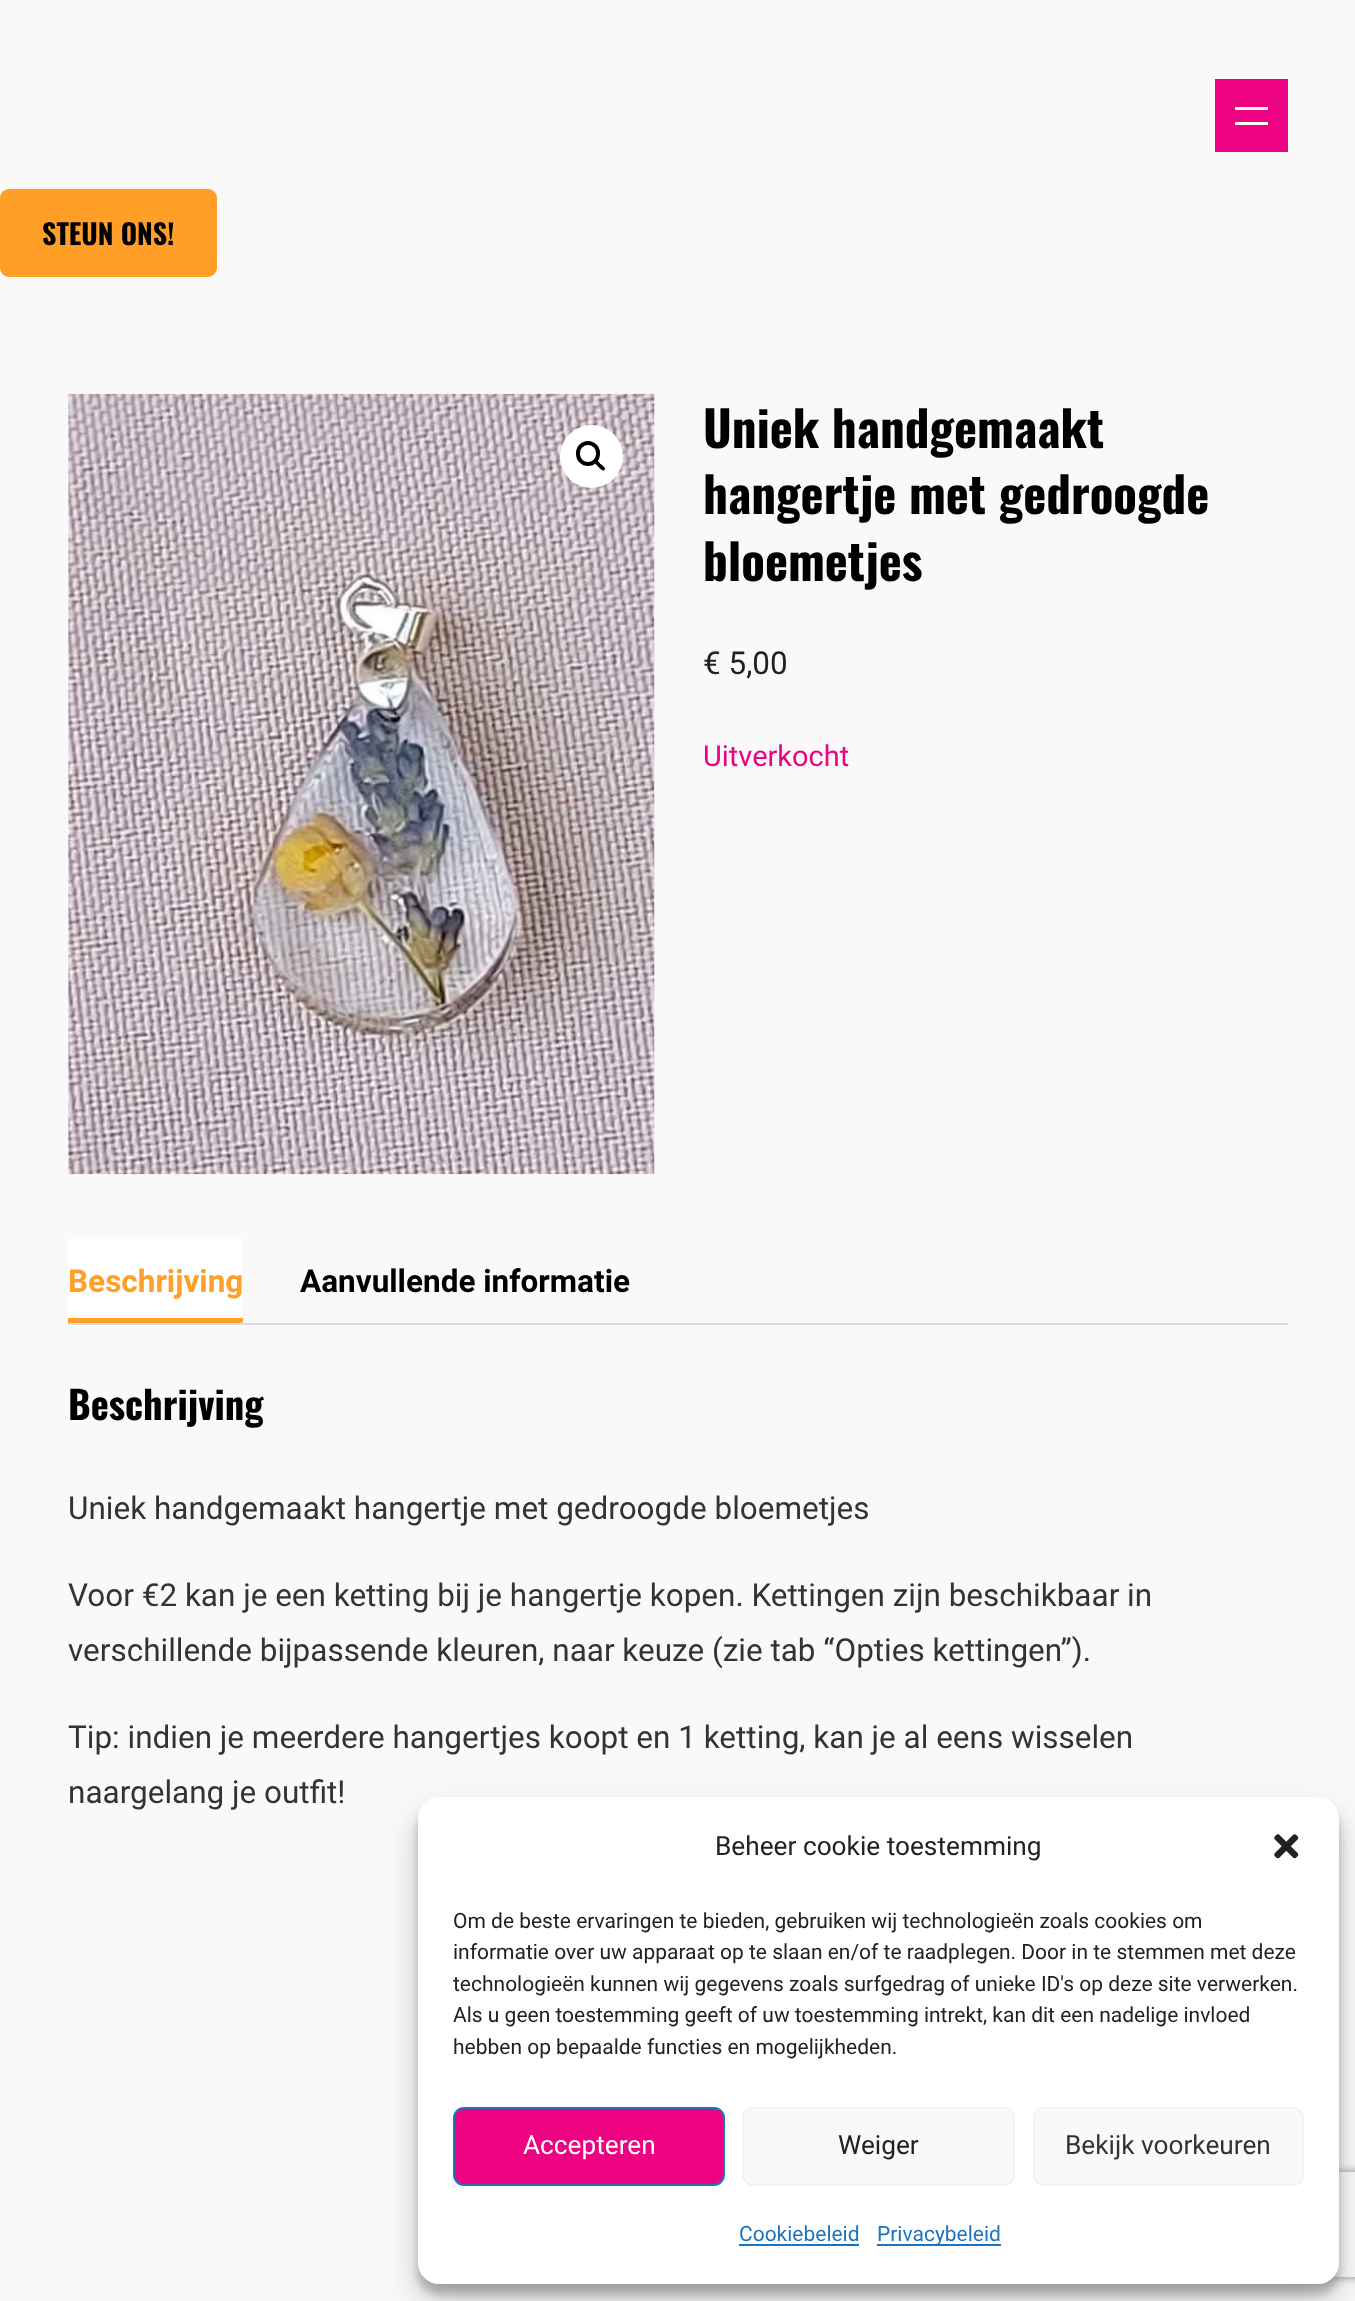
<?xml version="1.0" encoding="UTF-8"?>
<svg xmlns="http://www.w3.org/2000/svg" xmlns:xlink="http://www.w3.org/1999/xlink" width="1355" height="2301">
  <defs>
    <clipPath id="clip1"><rect x="68" y="1237" width="1220" height="88" /></clipPath>
    <clipPath id="clip2"><path d="M 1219 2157 h 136 v 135 h -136 z m 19 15 h 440 c 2 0 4 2 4 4 v 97 c 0 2 -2 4 -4 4 h -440 c -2 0 -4 -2 -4 -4 v -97 c 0 -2 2 -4 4 -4 z" clip-rule="evenodd" /></clipPath>
  </defs>
  <rect width="100%" height="100%" fill="#f9f9f9" />
  <rect x="1215" y="79" width="73" height="73" fill="#ed0282" />
  <rect x="1235" y="107" width="33" height="3" fill="#fefefe" />
  <rect x="1235" y="122" width="33" height="3" fill="#fefefe" />
  <rect y="189" width="217" height="88" rx="9" fill="#ff9f28" />
  <image x="68" y="393" width="587" height="782" xlink:href="image1.png" />
  <circle cx="591.5" cy="456.5" r="31.5" fill="#ffffff" />
  <rect x="578" y="443" width="20" height="21" rx="10" fill="none" stroke="#000000" stroke-width="4" />
  <path d="M 594.5 460 c 2 -2 5 3 6 4 c 1.5 1 6 4 4 6 c -2 2 -5 -2.5 -6.5 -3.5 c -1 -1.5 -5.5 -4.5 -3.5 -6.5 z" fill="#000000" />
  <path d="M 75 1237 h 161 c 4 0 7 3 7 7 v 81 h -175 v -81 c 0 -4 3 -7 7 -7 z" fill="#ffffff" />
  <g clip-path="url(#clip1)">
    <path d="M 68 1318 h 175 v 2 c 0 4 -3 7 -7 7 h -168 z" fill="#ff9f28" />
  </g>
  <rect x="68" y="1323" width="1220" height="2" fill="#dbdbdb" />
  <rect x="418" y="1808" width="921" height="486" rx="21" fill="#000000" fill-opacity="0.23" filter="blur(5px)" />
  <rect x="418" y="1815" width="921" height="486" rx="21" fill="#000000" fill-opacity="0.19" filter="blur(17.5px)" />
  <g clip-path="url(#clip2)">
    <rect x="1234" y="2172" width="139" height="105" rx="4" fill="#808080" filter="blur(4.5px)" />
  </g>
  <rect x="418" y="1797" width="921" height="487" rx="21" fill="#ffffff" />
  <image x="1274" y="1834" width="25" height="25" xlink:href="image2.png" />
  <rect x="454" y="2108" width="270" height="77" rx="10" fill="#ed0282" stroke="#1e73be" stroke-width="2" />
  <rect x="743" y="2108" width="271" height="77" rx="10" fill="#f9f9f9" stroke="#f2f2f2" stroke-width="2" />
  <rect x="1034" y="2108" width="269" height="77" rx="10" fill="#f9f9f9" stroke="#f2f2f2" stroke-width="2" />
  <rect x="739" y="2244" width="120" height="2" fill="#1e73be" />
  <rect x="877" y="2244" width="124" height="2" fill="#1e73be" />
  <text x="42" y="245" style="font-family: Oswald; font-size: 28px; font-weight: bold; fill: #000000">STEUN ONS!</text>
  <text x="703" y="448" style="font-family: Oswald; font-size: 49px; font-weight: bold; fill: #000000">Uniek handgemaakt</text>
  <text x="703" y="514" style="font-family: Oswald; font-size: 49px; font-weight: bold; fill: #000000">hangertje met gedroogde</text>
  <text x="703" y="581" style="font-family: Oswald; font-size: 49px; font-weight: bold; fill: #000000">bloemetjes</text>
  <text x="703" y="674" style="font-family: Roboto; font-size: 31.5px; fill: #212121">€ 5,00</text>
  <text x="703" y="766" style="font-family: Roboto; font-size: 29px; fill: #ed0282">Uitverkocht</text>
  <text x="68" y="1292" style="font-family: Roboto; font-size: 31.5px; font-weight: bold; fill: #ff9f28">Beschrijving</text>
  <text x="300" y="1292" style="font-family: Roboto; font-size: 31.5px; font-weight: bold; fill: #000000">Aanvullende informatie</text>
  <text x="68" y="1420" style="font-family: Oswald; font-size: 38.5px; font-weight: bold; fill: #000000">Beschrijving</text>
  <text x="68" y="1519" style="font-family: Roboto; font-size: 31.5px; fill: #333333">Uniek handgemaakt hangertje met gedroogde bloemetjes</text>
  <text x="68" y="1606" style="font-family: Roboto; font-size: 31.5px; fill: #333333">Voor €2 kan je een ketting bij je hangertje kopen. Kettingen zijn beschikbaar in</text>
  <text x="68" y="1661" style="font-family: Roboto; font-size: 31.5px; fill: #333333">verschillende bijpassende kleuren, naar keuze (zie tab “Opties kettingen”).</text>
  <text x="68" y="1748" style="font-family: Roboto; font-size: 31.5px; fill: #333333">Tip: indien je meerdere hangertjes koopt en 1 ketting, kan je al eens wisselen</text>
  <text x="68" y="1803" style="font-family: Roboto; font-size: 31.5px; fill: #333333">naargelang je outfit!</text>
  <text x="715" y="1855" style="font-family: Roboto; font-size: 26.25px; fill: #212121">Beheer cookie toestemming</text>
  <text x="453" y="1928" style="font-family: Roboto; font-size: 21px; fill: #212121">Om de beste ervaringen te bieden, gebruiken wij technologieën zoals cookies om</text>
  <text x="453" y="1959" style="font-family: Roboto; font-size: 21px; fill: #212121">informatie over uw apparaat op te slaan en/of te raadplegen. Door in te stemmen met deze</text>
  <text x="453" y="1991" style="font-family: Roboto; font-size: 21px; fill: #212121">technologieën kunnen wij gegevens zoals surfgedrag of unieke ID's op deze site verwerken.</text>
  <text x="453" y="2022" style="font-family: Roboto; font-size: 21px; fill: #212121">Als u geen toestemming geeft of uw toestemming intrekt, kan dit een nadelige invloed</text>
  <text x="453" y="2054" style="font-family: Roboto; font-size: 21px; fill: #212121">hebben op bepaalde functies en mogelijkheden.</text>
  <text x="523" y="2154" style="font-family: Roboto; font-size: 26.25px; fill: #ffffff">Accepteren</text>
  <text x="838" y="2154" style="font-family: Roboto; font-size: 26.25px; fill: #212121">Weiger</text>
  <text x="1065" y="2154" style="font-family: Roboto; font-size: 26.25px; fill: #333333">Bekijk voorkeuren</text>
  <text x="739" y="2241" style="font-family: Roboto; font-size: 21px; fill: #1e73be">Cookiebeleid</text>
  <text x="877" y="2241" style="font-family: Roboto; font-size: 21px; fill: #1e73be">Privacybeleid</text>
</svg>
